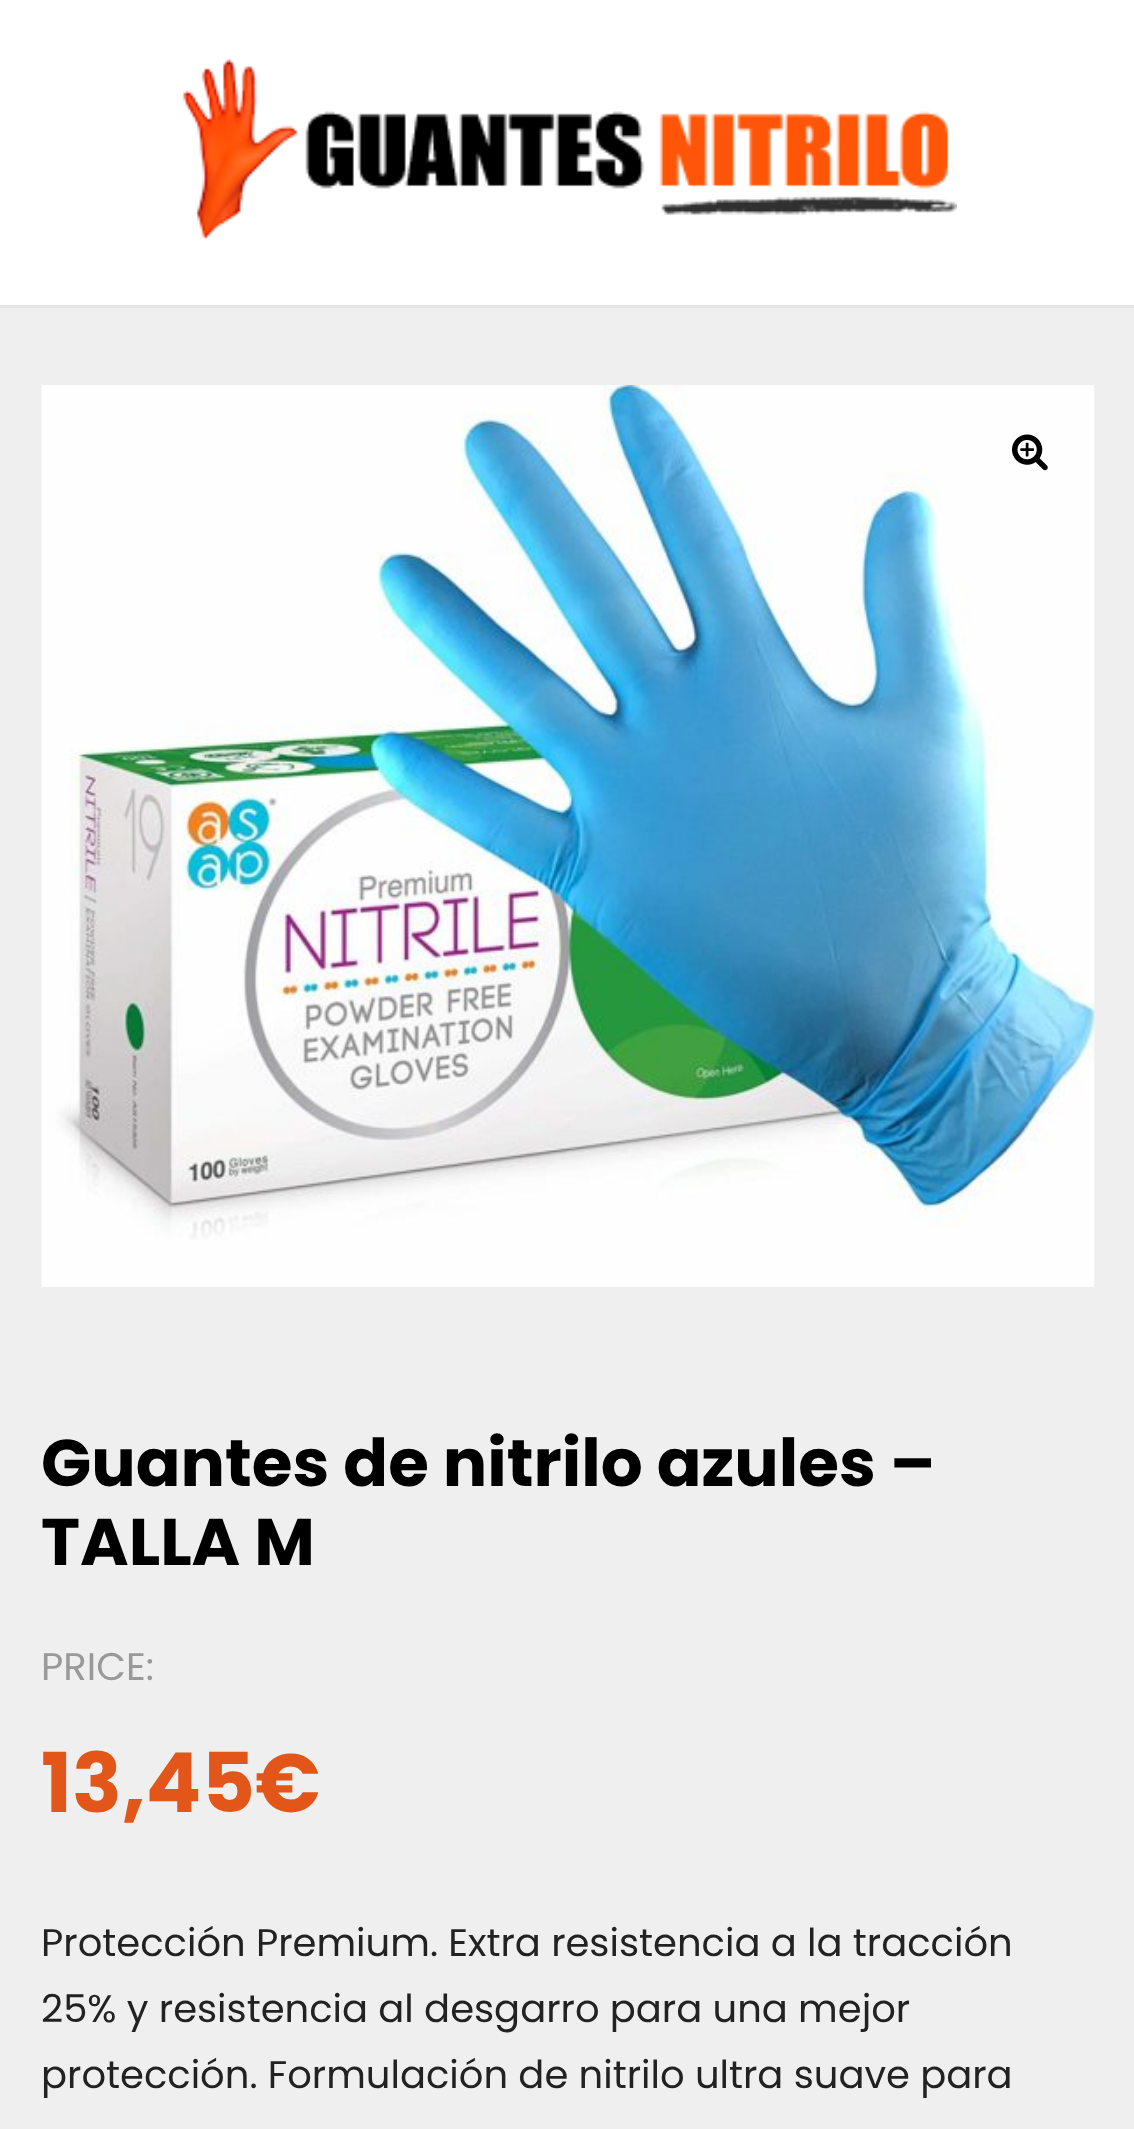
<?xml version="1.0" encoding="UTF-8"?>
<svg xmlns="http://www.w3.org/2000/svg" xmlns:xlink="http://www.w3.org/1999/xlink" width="1134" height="2129">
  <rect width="100%" height="100%" fill="#efefef" />
  <rect width="1134" height="305" fill="#ffffff" />
  <image x="182" y="59" width="775" height="180" xlink:href="image1.png" />
  <rect y="305" width="1134" height="3" fill="#e5e5e5" />
  <image x="41" y="385" width="1054" height="902" xlink:href="image2.png" />
  <image x="1012" y="434" width="36" height="37" xlink:href="image3.png" />
  <text x="41" y="1486" style="font-family: Poppins; font-size: 66px; font-weight: bold; fill: #000000">Guantes de nitrilo azules –</text>
  <text x="41" y="1565" style="font-family: Poppins; font-size: 66px; font-weight: bold; fill: #000000">TALLA M</text>
  <text x="41" y="1680" style="font-family: Poppins; font-size: 38.5px; fill: #999999">PRICE:</text>
  <text x="41" y="1812" style="font-family: Poppins; font-size: 82.5px; font-weight: bold; fill: #e25619">13,45€</text>
  <text x="41" y="1956" style="font-family: Poppins; font-size: 38.5px; fill: #222222">Protección Premium. Extra resistencia a la tracción</text>
  <text x="41" y="2022" style="font-family: Poppins; font-size: 38.5px; fill: #222222">25% y resistencia al desgarro para una mejor</text>
  <text x="41" y="2088" style="font-family: Poppins; font-size: 38.5px; fill: #222222">protección. Formulación de nitrilo ultra suave para</text>
</svg>
